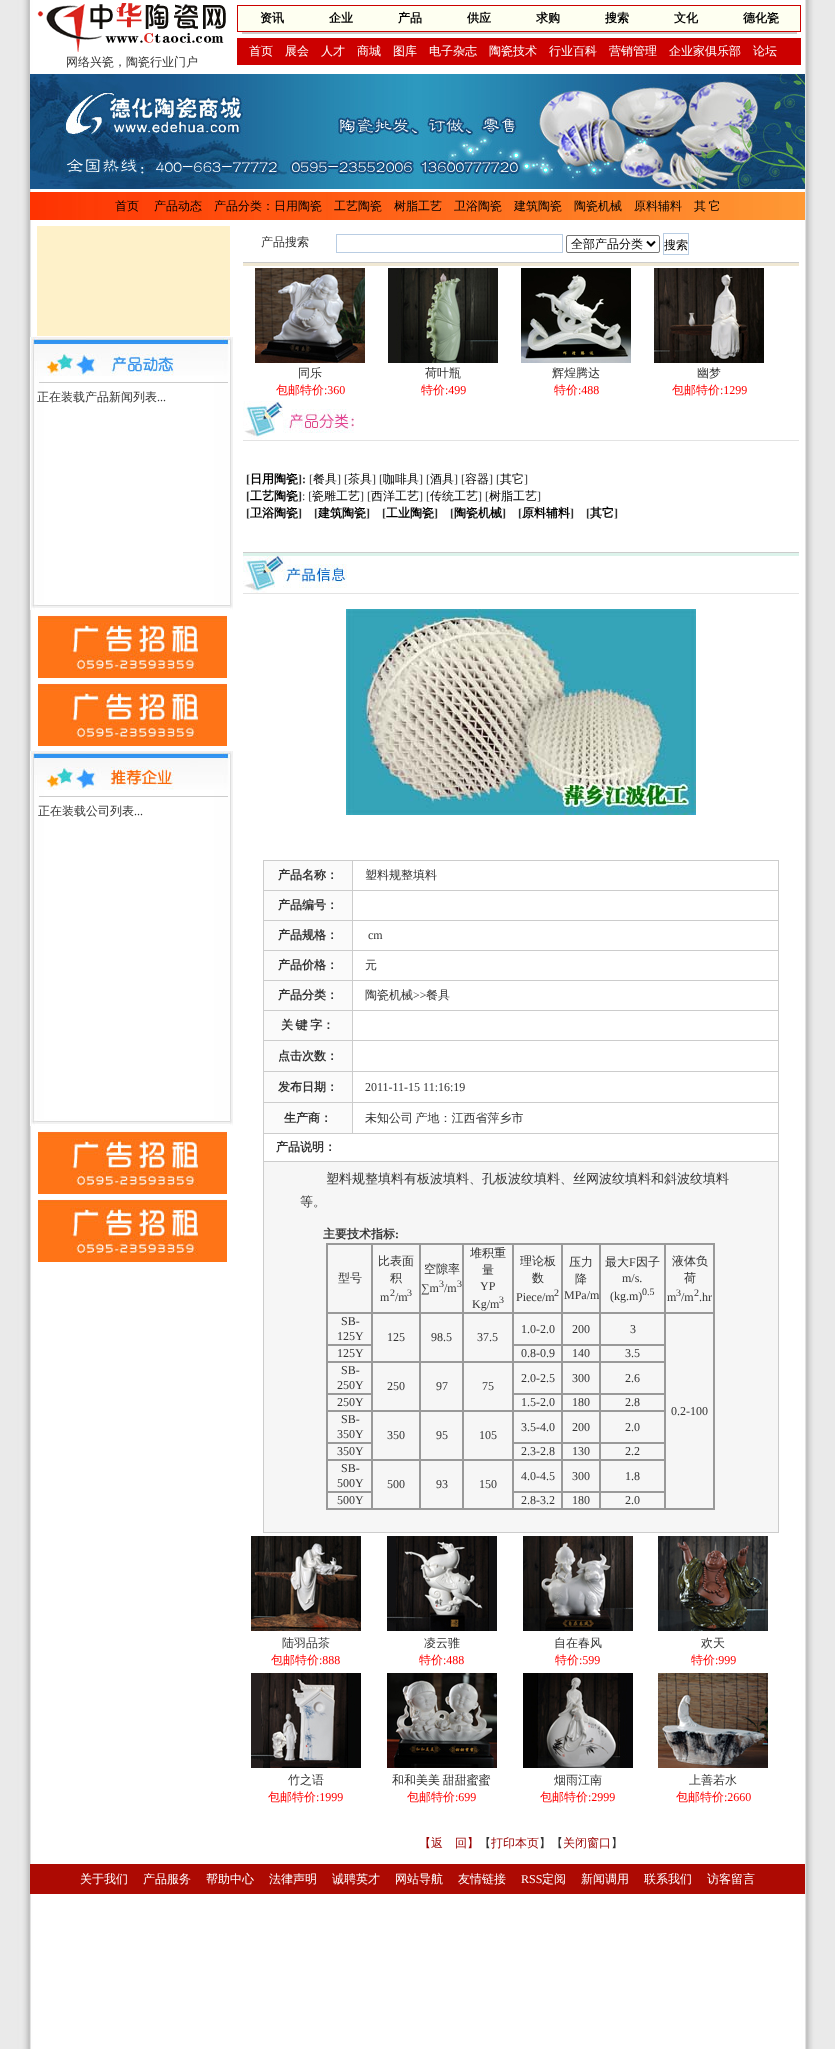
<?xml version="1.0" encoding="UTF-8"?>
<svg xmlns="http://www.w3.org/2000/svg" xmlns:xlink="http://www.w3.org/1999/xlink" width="835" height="2049">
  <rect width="100%" height="100%" fill="#ffffff" />
  <image x="0" y="0" width="835" height="2049" xlink:href="image1.png" />
  <rect x="30" width="1" height="74" fill="#ffffff" />
  <rect x="237" y="5" width="564" height="27" fill="#cc0000" />
  <rect x="238" y="6" width="562" height="25" fill="#fefff1" />
  <rect x="242" y="32" width="555" height="2" fill="#cccccc" />
  <image x="37" y="3" width="189" height="49" xlink:href="image2.png" />
  <rect x="237" y="38" width="564" height="27" fill="#cc0000" />
  <image x="30" y="74" width="775" height="115" xlink:href="image3.png" />
  <image x="30" y="192" width="775" height="28" xlink:href="image4.png" />
  <rect x="37" y="226" width="193" height="110" fill="#fef1c9" />
  <image x="30" y="337" width="203" height="39" xlink:href="image5.png" />
  <image x="30" y="376" width="203" height="226" xlink:href="image6.png" />
  <rect x="39" y="382" width="189" height="1" fill="#cccccc" />
  <image x="30" y="602" width="203" height="8" xlink:href="image7.png" />
  <image x="31" y="603" width="202" height="7" xlink:href="image8.png" />
  <image x="38" y="615" width="189" height="63" xlink:href="image9.png" />
  <image x="38" y="683" width="189" height="63" xlink:href="image9.png" />
  <image x="30" y="751" width="203" height="39" xlink:href="image10.png" />
  <image x="30" y="790" width="203" height="328" xlink:href="image11.png" />
  <rect x="39" y="796" width="189" height="1" fill="#cccccc" />
  <image x="30" y="1118" width="203" height="8" xlink:href="image7.png" />
  <image x="31" y="1119" width="202" height="7" xlink:href="image8.png" />
  <image x="38" y="1131" width="189" height="63" xlink:href="image9.png" />
  <image x="38" y="1199" width="189" height="63" xlink:href="image9.png" />
  <rect x="336.5" y="234.5" width="226" height="18" fill="none" stroke="#b9cde3" />
  <rect x="566.5" y="235.5" width="93" height="17" rx="1.5" fill="none" stroke="#767676" />
  <path d="M 647 241.5 l 4 4 l 4 -4" fill="none" stroke="#000000" stroke-width="2" />
  <rect x="663.5" y="233.5" width="25" height="21" fill="none" stroke="#b9cde3" />
  <rect x="243" y="262" width="556" height="1" fill="#cccccc" />
  <rect x="243" y="263" width="556" height="3" fill="#f0e8d3" />
  <image x="255" y="268" width="110" height="95" xlink:href="image12.png" />
  <image x="388" y="268" width="110" height="95" xlink:href="image13.png" />
  <image x="521" y="268" width="110" height="95" xlink:href="image14.png" />
  <image x="654" y="268" width="110" height="95" xlink:href="image15.png" />
  <image x="243" y="401" width="111" height="39" xlink:href="image16.png" />
  <rect x="243" y="440" width="556" height="1" fill="#e3e3e3" />
  <rect x="243" y="552" width="556" height="1" fill="#cccccc" />
  <rect x="243" y="553" width="556" height="3" fill="#dcf3eb" />
  <image x="243" y="556" width="104" height="37" xlink:href="image17.png" />
  <rect x="243" y="593" width="556" height="1" fill="#e3e3e3" />
  <image x="346" y="609" width="350" height="206" xlink:href="image18.png" />
  <rect x="263" y="860" width="516" height="673" fill="#cccccc" />
  <rect x="264" y="861" width="88" height="29" fill="#fafafa" />
  <rect x="353" y="861" width="425" height="29" fill="#ffffff" />
  <rect x="264" y="891" width="88" height="29" fill="#fafafa" />
  <rect x="353" y="891" width="425" height="29" fill="#ffffff" />
  <rect x="264" y="921" width="88" height="29" fill="#fafafa" />
  <rect x="353" y="921" width="425" height="29" fill="#ffffff" />
  <rect x="264" y="951" width="88" height="29" fill="#fafafa" />
  <rect x="353" y="951" width="425" height="29" fill="#ffffff" />
  <rect x="264" y="981" width="88" height="29" fill="#fafafa" />
  <rect x="353" y="981" width="425" height="29" fill="#ffffff" />
  <rect x="264" y="1011" width="88" height="29" fill="#fafafa" />
  <rect x="353" y="1011" width="425" height="29" fill="#ffffff" />
  <rect x="264" y="1041" width="88" height="30" fill="#fafafa" />
  <rect x="353" y="1041" width="425" height="30" fill="#ffffff" />
  <rect x="264" y="1072" width="88" height="30" fill="#fafafa" />
  <rect x="353" y="1072" width="425" height="30" fill="#ffffff" />
  <rect x="264" y="1103" width="88" height="30" fill="#fafafa" />
  <rect x="353" y="1103" width="425" height="30" fill="#ffffff" />
  <rect x="264" y="1134" width="514" height="27" fill="#ffffff" />
  <rect x="264" y="1162" width="514" height="370" fill="#f6f6f6" />
  <rect x="326.5" y="1243.5" width="388" height="266" fill="none" stroke="#999999" />
  <rect x="327.5" y="1244.5" width="44" height="68" fill="none" stroke="#999999" />
  <rect x="372.5" y="1244.5" width="47" height="68" fill="none" stroke="#999999" />
  <rect x="420.5" y="1244.5" width="42" height="68" fill="none" stroke="#999999" />
  <rect x="463.5" y="1244.5" width="49" height="68" fill="none" stroke="#999999" />
  <rect x="513.5" y="1244.5" width="48" height="68" fill="none" stroke="#999999" />
  <rect x="562.5" y="1244.5" width="37" height="68" fill="none" stroke="#999999" />
  <rect x="600.5" y="1244.5" width="64" height="68" fill="none" stroke="#999999" />
  <rect x="665.5" y="1244.5" width="48" height="68" fill="none" stroke="#999999" />
  <rect x="327.5" y="1313.5" width="44" height="31" fill="none" stroke="#999999" />
  <rect x="513.5" y="1313.5" width="48" height="31" fill="none" stroke="#999999" />
  <rect x="562.5" y="1313.5" width="37" height="31" fill="none" stroke="#999999" />
  <rect x="600.5" y="1313.5" width="64" height="31" fill="none" stroke="#999999" />
  <rect x="372.5" y="1313.5" width="47" height="48" fill="none" stroke="#999999" />
  <rect x="420.5" y="1313.5" width="42" height="48" fill="none" stroke="#999999" />
  <rect x="463.5" y="1313.5" width="49" height="48" fill="none" stroke="#999999" />
  <rect x="665.5" y="1313.5" width="48" height="195" fill="none" stroke="#999999" />
  <rect x="327.5" y="1345.5" width="44" height="16" fill="none" stroke="#999999" />
  <rect x="513.5" y="1345.5" width="48" height="16" fill="none" stroke="#999999" />
  <rect x="562.5" y="1345.5" width="37" height="16" fill="none" stroke="#999999" />
  <rect x="600.5" y="1345.5" width="64" height="16" fill="none" stroke="#999999" />
  <rect x="327.5" y="1362.5" width="44" height="31" fill="none" stroke="#999999" />
  <rect x="513.5" y="1362.5" width="48" height="31" fill="none" stroke="#999999" />
  <rect x="562.5" y="1362.5" width="37" height="31" fill="none" stroke="#999999" />
  <rect x="600.5" y="1362.5" width="64" height="31" fill="none" stroke="#999999" />
  <rect x="372.5" y="1362.5" width="47" height="48" fill="none" stroke="#999999" />
  <rect x="420.5" y="1362.5" width="42" height="48" fill="none" stroke="#999999" />
  <rect x="463.5" y="1362.5" width="49" height="48" fill="none" stroke="#999999" />
  <rect x="327.5" y="1394.5" width="44" height="16" fill="none" stroke="#999999" />
  <rect x="513.5" y="1394.5" width="48" height="16" fill="none" stroke="#999999" />
  <rect x="562.5" y="1394.5" width="37" height="16" fill="none" stroke="#999999" />
  <rect x="600.5" y="1394.5" width="64" height="16" fill="none" stroke="#999999" />
  <rect x="327.5" y="1411.5" width="44" height="31" fill="none" stroke="#999999" />
  <rect x="513.5" y="1411.5" width="48" height="31" fill="none" stroke="#999999" />
  <rect x="562.5" y="1411.5" width="37" height="31" fill="none" stroke="#999999" />
  <rect x="600.5" y="1411.5" width="64" height="31" fill="none" stroke="#999999" />
  <rect x="372.5" y="1411.5" width="47" height="48" fill="none" stroke="#999999" />
  <rect x="420.5" y="1411.5" width="42" height="48" fill="none" stroke="#999999" />
  <rect x="463.5" y="1411.5" width="49" height="48" fill="none" stroke="#999999" />
  <rect x="327.5" y="1443.5" width="44" height="16" fill="none" stroke="#999999" />
  <rect x="513.5" y="1443.5" width="48" height="16" fill="none" stroke="#999999" />
  <rect x="562.5" y="1443.5" width="37" height="16" fill="none" stroke="#999999" />
  <rect x="600.5" y="1443.5" width="64" height="16" fill="none" stroke="#999999" />
  <rect x="327.5" y="1460.5" width="44" height="31" fill="none" stroke="#999999" />
  <rect x="513.5" y="1460.5" width="48" height="31" fill="none" stroke="#999999" />
  <rect x="562.5" y="1460.5" width="37" height="31" fill="none" stroke="#999999" />
  <rect x="600.5" y="1460.5" width="64" height="31" fill="none" stroke="#999999" />
  <rect x="372.5" y="1460.5" width="47" height="48" fill="none" stroke="#999999" />
  <rect x="420.5" y="1460.5" width="42" height="48" fill="none" stroke="#999999" />
  <rect x="463.5" y="1460.5" width="49" height="48" fill="none" stroke="#999999" />
  <rect x="327.5" y="1492.5" width="44" height="16" fill="none" stroke="#999999" />
  <rect x="513.5" y="1492.5" width="48" height="16" fill="none" stroke="#999999" />
  <rect x="562.5" y="1492.5" width="37" height="16" fill="none" stroke="#999999" />
  <rect x="600.5" y="1492.5" width="64" height="16" fill="none" stroke="#999999" />
  <image x="251" y="1536" width="110" height="95" xlink:href="image19.png" />
  <image x="387" y="1536" width="110" height="95" xlink:href="image20.png" />
  <image x="523" y="1536" width="110" height="95" xlink:href="image21.png" />
  <image x="658" y="1536" width="110" height="95" xlink:href="image22.png" />
  <image x="251" y="1673" width="110" height="95" xlink:href="image23.png" />
  <image x="387" y="1673" width="110" height="95" xlink:href="image24.png" />
  <image x="523" y="1673" width="110" height="95" xlink:href="image25.png" />
  <image x="658" y="1673" width="110" height="95" xlink:href="image26.png" />
  <rect x="30" y="1864" width="775" height="30" fill="#ad0a03" />
  <text x="260" y="22" style="font-family: WenQuanYi Zen Hei; font-size: 12px; font-weight: bold; fill: #000000">资讯</text>
  <text x="329" y="22" style="font-family: WenQuanYi Zen Hei; font-size: 12px; font-weight: bold; fill: #000000">企业</text>
  <text x="398" y="22" style="font-family: WenQuanYi Zen Hei; font-size: 12px; font-weight: bold; fill: #000000">产品</text>
  <text x="467" y="22" style="font-family: WenQuanYi Zen Hei; font-size: 12px; font-weight: bold; fill: #000000">供应</text>
  <text x="536" y="22" style="font-family: WenQuanYi Zen Hei; font-size: 12px; font-weight: bold; fill: #000000">求购</text>
  <text x="605" y="22" style="font-family: WenQuanYi Zen Hei; font-size: 12px; font-weight: bold; fill: #000000">搜索</text>
  <text x="674" y="22" style="font-family: WenQuanYi Zen Hei; font-size: 12px; font-weight: bold; fill: #000000">文化</text>
  <text x="743" y="22" style="font-family: WenQuanYi Zen Hei; font-size: 12px; font-weight: bold; fill: #000000">德化瓷</text>
  <text x="66" y="66" style="font-family: WenQuanYi Zen Hei; font-size: 12px; font-weight: 500; fill: #333333">网络兴瓷，陶瓷行业门户</text>
  <text x="249" y="55" style="font-family: WenQuanYi Zen Hei; font-size: 12px; font-weight: 500; fill: #ffffff">首页</text>
  <text x="285" y="55" style="font-family: WenQuanYi Zen Hei; font-size: 12px; font-weight: 500; fill: #ffffff">展会</text>
  <text x="321" y="55" style="font-family: WenQuanYi Zen Hei; font-size: 12px; font-weight: 500; fill: #ffffff">人才</text>
  <text x="357" y="55" style="font-family: WenQuanYi Zen Hei; font-size: 12px; font-weight: 500; fill: #ffffff">商城</text>
  <text x="393" y="55" style="font-family: WenQuanYi Zen Hei; font-size: 12px; font-weight: 500; fill: #ffffff">图库</text>
  <text x="429" y="55" style="font-family: WenQuanYi Zen Hei; font-size: 12px; font-weight: 500; fill: #ffffff">电子杂志</text>
  <text x="489" y="55" style="font-family: WenQuanYi Zen Hei; font-size: 12px; font-weight: 500; fill: #ffffff">陶瓷技术</text>
  <text x="549" y="55" style="font-family: WenQuanYi Zen Hei; font-size: 12px; font-weight: 500; fill: #ffffff">行业百科</text>
  <text x="609" y="55" style="font-family: WenQuanYi Zen Hei; font-size: 12px; font-weight: 500; fill: #ffffff">营销管理</text>
  <text x="669" y="55" style="font-family: WenQuanYi Zen Hei; font-size: 12px; font-weight: 500; fill: #ffffff">企业家俱乐部</text>
  <text x="753" y="55" style="font-family: WenQuanYi Zen Hei; font-size: 12px; font-weight: 500; fill: #ffffff">论坛</text>
  <text x="115" y="210" style="font-family: WenQuanYi Zen Hei; font-size: 12px; font-weight: 500; fill: #000000">首页</text>
  <text x="154" y="210" style="font-family: WenQuanYi Zen Hei; font-size: 12px; font-weight: 500; fill: #000000">产品动态</text>
  <text x="214" y="210" style="font-family: WenQuanYi Zen Hei; font-size: 12px; font-weight: 500; fill: #000000">产品分类：日用陶瓷</text>
  <text x="334" y="210" style="font-family: WenQuanYi Zen Hei; font-size: 12px; font-weight: 500; fill: #000000">工艺陶瓷</text>
  <text x="394" y="210" style="font-family: WenQuanYi Zen Hei; font-size: 12px; font-weight: 500; fill: #000000">树脂工艺</text>
  <text x="454" y="210" style="font-family: WenQuanYi Zen Hei; font-size: 12px; font-weight: 500; fill: #000000">卫浴陶瓷</text>
  <text x="514" y="210" style="font-family: WenQuanYi Zen Hei; font-size: 12px; font-weight: 500; fill: #000000">建筑陶瓷</text>
  <text x="574" y="210" style="font-family: WenQuanYi Zen Hei; font-size: 12px; font-weight: 500; fill: #000000">陶瓷机械</text>
  <text x="634" y="210" style="font-family: WenQuanYi Zen Hei; font-size: 12px; font-weight: 500; fill: #000000">原料辅料</text>
  <text x="694" y="210" word-spacing="-1" style="font-family: WenQuanYi Zen Hei; font-size: 12px; font-weight: 500; fill: #000000">其 它</text>
  <text x="37" y="401" style="font-family: WenQuanYi Zen Hei; font-size: 12px; font-weight: 500; fill: #333333">正在装载产品新闻列表</text>
  <text x="157" y="401" style="font-family: Liberation Serif; font-size: 12px; fill: #333333">...</text>
  <text x="38" y="815" style="font-family: WenQuanYi Zen Hei; font-size: 12px; font-weight: 500; fill: #333333">正在装载公司列表</text>
  <text x="134" y="815" style="font-family: Liberation Serif; font-size: 12px; fill: #333333">...</text>
  <text x="261" y="246" style="font-family: WenQuanYi Zen Hei; font-size: 12px; font-weight: 500; fill: #333333">产品搜索</text>
  <text x="571" y="248" style="font-family: WenQuanYi Zen Hei; font-size: 12px; font-weight: 500; fill: #000000">全部产品分类</text>
  <text x="664" y="249" style="font-family: WenQuanYi Zen Hei; font-size: 12px; font-weight: 500; fill: #000000">搜索</text>
  <text x="298" y="377" style="font-family: WenQuanYi Zen Hei; font-size: 12px; font-weight: 500; fill: #333333">同乐</text>
  <text x="276" y="394" style="font-family: WenQuanYi Zen Hei; font-size: 12px; font-weight: 500; fill: #ff0000">包邮特价</text>
  <text x="324" y="394" style="font-family: Liberation Serif; font-size: 12px; fill: #ff0000">:360</text>
  <text x="425" y="377" style="font-family: WenQuanYi Zen Hei; font-size: 12px; font-weight: 500; fill: #333333">荷叶瓶</text>
  <text x="421" y="394" style="font-family: WenQuanYi Zen Hei; font-size: 12px; font-weight: 500; fill: #ff0000">特价</text>
  <text x="445" y="394" style="font-family: Liberation Serif; font-size: 12px; fill: #ff0000">:499</text>
  <text x="552" y="377" style="font-family: WenQuanYi Zen Hei; font-size: 12px; font-weight: 500; fill: #333333">辉煌腾达</text>
  <text x="554" y="394" style="font-family: WenQuanYi Zen Hei; font-size: 12px; font-weight: 500; fill: #ff0000">特价</text>
  <text x="578" y="394" style="font-family: Liberation Serif; font-size: 12px; fill: #ff0000">:488</text>
  <text x="697" y="377" style="font-family: WenQuanYi Zen Hei; font-size: 12px; font-weight: 500; fill: #333333">幽梦</text>
  <text x="672" y="394" style="font-family: WenQuanYi Zen Hei; font-size: 12px; font-weight: 500; fill: #ff0000">包邮特价</text>
  <text x="720" y="394" style="font-family: Liberation Serif; font-size: 12px; fill: #ff0000">:1299</text>
  <text x="246" y="483" style="font-family: Liberation Serif; font-size: 12px; font-weight: bold; fill: #333333">[</text>
  <text x="250" y="483" style="font-family: WenQuanYi Zen Hei; font-size: 12px; font-weight: bold; fill: #000000">日用陶瓷</text>
  <text x="298" y="483" style="font-family: Liberation Serif; font-size: 12px; font-weight: bold; fill: #333333">]:</text>
  <text x="309" y="483" style="font-family: Liberation Serif; font-size: 12px; fill: #333333">[</text>
  <text x="313" y="483" style="font-family: WenQuanYi Zen Hei; font-size: 12px; font-weight: 500; fill: #000000">餐具</text>
  <text x="337" y="483" style="font-family: Liberation Serif; font-size: 12px; fill: #333333">] [</text>
  <text x="348" y="483" style="font-family: WenQuanYi Zen Hei; font-size: 12px; font-weight: 500; fill: #000000">茶具</text>
  <text x="372" y="483" style="font-family: Liberation Serif; font-size: 12px; fill: #333333">] [</text>
  <text x="383" y="483" style="font-family: WenQuanYi Zen Hei; font-size: 12px; font-weight: 500; fill: #000000">咖啡具</text>
  <text x="419" y="483" style="font-family: Liberation Serif; font-size: 12px; fill: #333333">] [</text>
  <text x="430" y="483" style="font-family: WenQuanYi Zen Hei; font-size: 12px; font-weight: 500; fill: #000000">酒具</text>
  <text x="454" y="483" style="font-family: Liberation Serif; font-size: 12px; fill: #333333">] [</text>
  <text x="465" y="483" style="font-family: WenQuanYi Zen Hei; font-size: 12px; font-weight: 500; fill: #000000">容器</text>
  <text x="489" y="483" style="font-family: Liberation Serif; font-size: 12px; fill: #333333">] [</text>
  <text x="500" y="483" style="font-family: WenQuanYi Zen Hei; font-size: 12px; font-weight: 500; fill: #000000">其它</text>
  <text x="524" y="483" style="font-family: Liberation Serif; font-size: 12px; fill: #333333">]</text>
  <text x="246" y="500" style="font-family: Liberation Serif; font-size: 12px; font-weight: bold; fill: #333333">[</text>
  <text x="250" y="500" style="font-family: WenQuanYi Zen Hei; font-size: 12px; font-weight: bold; fill: #000000">工艺陶瓷</text>
  <text x="298" y="500" style="font-family: Liberation Serif; font-size: 12px; font-weight: bold; fill: #333333">]</text>
  <text x="302" y="500" style="font-family: Liberation Serif; font-size: 12px; fill: #333333">: [</text>
  <text x="312" y="500" style="font-family: WenQuanYi Zen Hei; font-size: 12px; font-weight: 500; fill: #000000">瓷雕工艺</text>
  <text x="360" y="500" style="font-family: Liberation Serif; font-size: 12px; fill: #333333">] [</text>
  <text x="371" y="500" style="font-family: WenQuanYi Zen Hei; font-size: 12px; font-weight: 500; fill: #000000">西洋工艺</text>
  <text x="419" y="500" style="font-family: Liberation Serif; font-size: 12px; fill: #333333">] [</text>
  <text x="430" y="500" style="font-family: WenQuanYi Zen Hei; font-size: 12px; font-weight: 500; fill: #000000">传统工艺</text>
  <text x="478" y="500" style="font-family: Liberation Serif; font-size: 12px; fill: #333333">] [</text>
  <text x="489" y="500" style="font-family: WenQuanYi Zen Hei; font-size: 12px; font-weight: 500; fill: #000000">树脂工艺</text>
  <text x="537" y="500" style="font-family: Liberation Serif; font-size: 12px; fill: #333333">]</text>
  <text x="246" y="517" style="font-family: Liberation Serif; font-size: 12px; font-weight: bold; fill: #333333">[</text>
  <text x="250" y="517" style="font-family: WenQuanYi Zen Hei; font-size: 12px; font-weight: bold; fill: #000000">卫浴陶瓷</text>
  <text x="298" y="517" style="font-family: Liberation Serif; font-size: 12px; font-weight: bold; fill: #333333">]</text>
  <text x="314" y="517" style="font-family: Liberation Serif; font-size: 12px; font-weight: bold; fill: #333333">[</text>
  <text x="318" y="517" style="font-family: WenQuanYi Zen Hei; font-size: 12px; font-weight: bold; fill: #000000">建筑陶瓷</text>
  <text x="366" y="517" style="font-family: Liberation Serif; font-size: 12px; font-weight: bold; fill: #333333">]</text>
  <text x="382" y="517" style="font-family: Liberation Serif; font-size: 12px; font-weight: bold; fill: #333333">[</text>
  <text x="386" y="517" style="font-family: WenQuanYi Zen Hei; font-size: 12px; font-weight: bold; fill: #000000">工业陶瓷</text>
  <text x="434" y="517" style="font-family: Liberation Serif; font-size: 12px; font-weight: bold; fill: #333333">]</text>
  <text x="450" y="517" style="font-family: Liberation Serif; font-size: 12px; font-weight: bold; fill: #333333">[</text>
  <text x="454" y="517" style="font-family: WenQuanYi Zen Hei; font-size: 12px; font-weight: bold; fill: #000000">陶瓷机械</text>
  <text x="502" y="517" style="font-family: Liberation Serif; font-size: 12px; font-weight: bold; fill: #333333">]</text>
  <text x="518" y="517" style="font-family: Liberation Serif; font-size: 12px; font-weight: bold; fill: #333333">[</text>
  <text x="522" y="517" style="font-family: WenQuanYi Zen Hei; font-size: 12px; font-weight: bold; fill: #000000">原料辅料</text>
  <text x="570" y="517" style="font-family: Liberation Serif; font-size: 12px; font-weight: bold; fill: #333333">]</text>
  <text x="586" y="517" style="font-family: Liberation Serif; font-size: 12px; font-weight: bold; fill: #333333">[</text>
  <text x="590" y="517" style="font-family: WenQuanYi Zen Hei; font-size: 12px; font-weight: bold; fill: #000000">其它</text>
  <text x="614" y="517" style="font-family: Liberation Serif; font-size: 12px; font-weight: bold; fill: #333333">]</text>
  <text x="278" y="879" style="font-family: WenQuanYi Zen Hei; font-size: 12px; font-weight: bold; fill: #333333">产品名称：</text>
  <text x="365" y="879" style="font-family: WenQuanYi Zen Hei; font-size: 12px; font-weight: 500; fill: #333333">塑料规整填料</text>
  <text x="278" y="909" style="font-family: WenQuanYi Zen Hei; font-size: 12px; font-weight: bold; fill: #333333">产品编号：</text>
  <text x="278" y="939" style="font-family: WenQuanYi Zen Hei; font-size: 12px; font-weight: bold; fill: #333333">产品规格：</text>
  <text x="368" y="939" style="font-family: Liberation Serif; font-size: 12px; fill: #333333">cm</text>
  <text x="278" y="969" style="font-family: WenQuanYi Zen Hei; font-size: 12px; font-weight: bold; fill: #333333">产品价格：</text>
  <text x="365" y="969" style="font-family: WenQuanYi Zen Hei; font-size: 12px; font-weight: 500; fill: #333333">元</text>
  <text x="278" y="999" style="font-family: WenQuanYi Zen Hei; font-size: 12px; font-weight: bold; fill: #333333">产品分类：</text>
  <text x="365" y="999" style="font-family: WenQuanYi Zen Hei; font-size: 12px; font-weight: 500; fill: #333333">陶瓷机械</text>
  <text x="413" y="999" style="font-family: Liberation Serif; font-size: 12px; fill: #333333">&gt;&gt;</text>
  <text x="426" y="999" style="font-family: WenQuanYi Zen Hei; font-size: 12px; font-weight: 500; fill: #333333">餐具</text>
  <text x="281" y="1029" word-spacing="-1" style="font-family: WenQuanYi Zen Hei; font-size: 12px; font-weight: bold; fill: #333333">关 键 字：</text>
  <text x="278" y="1060" style="font-family: WenQuanYi Zen Hei; font-size: 12px; font-weight: bold; fill: #333333">点击次数：</text>
  <text x="278" y="1091" style="font-family: WenQuanYi Zen Hei; font-size: 12px; font-weight: bold; fill: #333333">发布日期：</text>
  <text x="365" y="1091" style="font-family: Liberation Serif; font-size: 12px; fill: #333333">2011-11-15 11:16:19</text>
  <text x="284" y="1122" style="font-family: WenQuanYi Zen Hei; font-size: 12px; font-weight: bold; fill: #333333">生产商：</text>
  <text x="365" y="1122" word-spacing="-1" style="font-family: WenQuanYi Zen Hei; font-size: 12px; font-weight: 500; fill: #333333">未知公司 产地：江西省萍乡市</text>
  <text x="276" y="1151" style="font-family: WenQuanYi Zen Hei; font-size: 12px; font-weight: bold; fill: #333333">产品说明：</text>
  <text x="326" y="1183" style="font-family: WenQuanYi Zen Hei; font-size: 13px; font-weight: 500; fill: #333333">塑料规整填料有板波填料、孔板波纹填料、丝网波纹填料和斜波纹填料</text>
  <text x="300" y="1206" style="font-family: WenQuanYi Zen Hei; font-size: 13px; font-weight: 500; fill: #333333">等。</text>
  <text x="323" y="1238" style="font-family: WenQuanYi Zen Hei; font-size: 12px; font-weight: bold; fill: #333333">主要技术指标</text>
  <text x="395" y="1238" style="font-family: Liberation Serif; font-size: 12px; font-weight: bold; fill: #333333">:</text>
  <text x="338" y="1282" style="font-family: WenQuanYi Zen Hei; font-size: 12px; font-weight: 500; fill: #333333">型号</text>
  <text x="378" y="1265" style="font-family: WenQuanYi Zen Hei; font-size: 12px; font-weight: 500; fill: #333333">比表面</text>
  <text x="390" y="1282" style="font-family: WenQuanYi Zen Hei; font-size: 12px; font-weight: 500; fill: #333333">积</text>
  <text x="380" y="1301" style="font-family: Liberation Serif; font-size: 12px; fill: #333333">m</text>
  <text x="390" y="1296" style="font-family: Liberation Serif; font-size: 10px; fill: #333333">2</text>
  <text x="395" y="1301" style="font-family: Liberation Serif; font-size: 12px; fill: #333333">/m</text>
  <text x="407" y="1296" style="font-family: Liberation Serif; font-size: 10px; fill: #333333">3</text>
  <text x="424" y="1273" style="font-family: WenQuanYi Zen Hei; font-size: 12px; font-weight: 500; fill: #333333">空隙率</text>
  <text x="421" y="1292" style="font-family: Liberation Serif; font-size: 12px; fill: #333333">∑m</text>
  <text x="439" y="1287" style="font-family: Liberation Serif; font-size: 10px; fill: #333333">3</text>
  <text x="444" y="1292" style="font-family: Liberation Serif; font-size: 12px; fill: #333333">/m</text>
  <text x="457" y="1287" style="font-family: Liberation Serif; font-size: 10px; fill: #333333">3</text>
  <text x="470" y="1257" style="font-family: WenQuanYi Zen Hei; font-size: 12px; font-weight: 500; fill: #333333">堆积重</text>
  <text x="482" y="1274" style="font-family: WenQuanYi Zen Hei; font-size: 12px; font-weight: 500; fill: #333333">量</text>
  <text x="480" y="1290" style="font-family: Liberation Serif; font-size: 12px; fill: #333333">YP</text>
  <text x="472" y="1308" style="font-family: Liberation Serif; font-size: 12px; fill: #333333">Kg/m</text>
  <text x="499" y="1303" style="font-family: Liberation Serif; font-size: 10px; fill: #333333">3</text>
  <text x="520" y="1265" style="font-family: WenQuanYi Zen Hei; font-size: 12px; font-weight: 500; fill: #333333">理论板</text>
  <text x="532" y="1282" style="font-family: WenQuanYi Zen Hei; font-size: 12px; font-weight: 500; fill: #333333">数</text>
  <text x="516" y="1301" style="font-family: Liberation Serif; font-size: 12px; fill: #333333">Piece/m</text>
  <text x="554" y="1296" style="font-family: Liberation Serif; font-size: 10px; fill: #333333">2</text>
  <text x="569" y="1266" style="font-family: WenQuanYi Zen Hei; font-size: 12px; font-weight: 500; fill: #333333">压力</text>
  <text x="575" y="1283" style="font-family: WenQuanYi Zen Hei; font-size: 12px; font-weight: 500; fill: #333333">降</text>
  <text x="564" y="1299" style="font-family: Liberation Serif; font-size: 12px; fill: #333333">MPa/m</text>
  <text x="605" y="1266" style="font-family: WenQuanYi Zen Hei; font-size: 12px; font-weight: 500; fill: #333333">最大</text>
  <text x="629" y="1266" style="font-family: Liberation Serif; font-size: 12px; fill: #333333">F</text>
  <text x="636" y="1266" style="font-family: WenQuanYi Zen Hei; font-size: 12px; font-weight: 500; fill: #333333">因子</text>
  <text x="622" y="1282" style="font-family: Liberation Serif; font-size: 12px; fill: #333333">m/s.</text>
  <text x="610" y="1300" style="font-family: Liberation Serif; font-size: 12px; fill: #333333">(kg.m)</text>
  <text x="642" y="1295" style="font-family: Liberation Serif; font-size: 10px; fill: #333333">0.5</text>
  <text x="672" y="1265" style="font-family: WenQuanYi Zen Hei; font-size: 12px; font-weight: 500; fill: #333333">液体负</text>
  <text x="684" y="1282" style="font-family: WenQuanYi Zen Hei; font-size: 12px; font-weight: 500; fill: #333333">荷</text>
  <text x="667" y="1301" style="font-family: Liberation Serif; font-size: 12px; fill: #333333">m</text>
  <text x="676" y="1296" style="font-family: Liberation Serif; font-size: 10px; fill: #333333">3</text>
  <text x="681" y="1301" style="font-family: Liberation Serif; font-size: 12px; fill: #333333">/m</text>
  <text x="694" y="1296" style="font-family: Liberation Serif; font-size: 10px; fill: #333333">2</text>
  <text x="699" y="1301" style="font-family: Liberation Serif; font-size: 12px; fill: #333333">.hr</text>
  <text x="341" y="1325" style="font-family: Liberation Serif; font-size: 12px; fill: #333333">SB-</text>
  <text x="337" y="1340" style="font-family: Liberation Serif; font-size: 12px; fill: #333333">125Y</text>
  <text x="521" y="1333" style="font-family: Liberation Serif; font-size: 12px; fill: #333333">1.0-2.0</text>
  <text x="572" y="1333" style="font-family: Liberation Serif; font-size: 12px; fill: #333333">200</text>
  <text x="630" y="1333" style="font-family: Liberation Serif; font-size: 12px; fill: #333333">3</text>
  <text x="387" y="1341" style="font-family: Liberation Serif; font-size: 12px; fill: #333333">125</text>
  <text x="431" y="1341" style="font-family: Liberation Serif; font-size: 12px; fill: #333333">98.5</text>
  <text x="477" y="1341" style="font-family: Liberation Serif; font-size: 12px; fill: #333333">37.5</text>
  <text x="671" y="1415" style="font-family: Liberation Serif; font-size: 12px; fill: #333333">0.2-100</text>
  <text x="337" y="1357" style="font-family: Liberation Serif; font-size: 12px; fill: #333333">125Y</text>
  <text x="521" y="1357" style="font-family: Liberation Serif; font-size: 12px; fill: #333333">0.8-0.9</text>
  <text x="572" y="1357" style="font-family: Liberation Serif; font-size: 12px; fill: #333333">140</text>
  <text x="625" y="1357" style="font-family: Liberation Serif; font-size: 12px; fill: #333333">3.5</text>
  <text x="341" y="1374" style="font-family: Liberation Serif; font-size: 12px; fill: #333333">SB-</text>
  <text x="337" y="1389" style="font-family: Liberation Serif; font-size: 12px; fill: #333333">250Y</text>
  <text x="521" y="1382" style="font-family: Liberation Serif; font-size: 12px; fill: #333333">2.0-2.5</text>
  <text x="572" y="1382" style="font-family: Liberation Serif; font-size: 12px; fill: #333333">300</text>
  <text x="625" y="1382" style="font-family: Liberation Serif; font-size: 12px; fill: #333333">2.6</text>
  <text x="387" y="1390" style="font-family: Liberation Serif; font-size: 12px; fill: #333333">250</text>
  <text x="436" y="1390" style="font-family: Liberation Serif; font-size: 12px; fill: #333333">97</text>
  <text x="482" y="1390" style="font-family: Liberation Serif; font-size: 12px; fill: #333333">75</text>
  <text x="337" y="1406" style="font-family: Liberation Serif; font-size: 12px; fill: #333333">250Y</text>
  <text x="521" y="1406" style="font-family: Liberation Serif; font-size: 12px; fill: #333333">1.5-2.0</text>
  <text x="572" y="1406" style="font-family: Liberation Serif; font-size: 12px; fill: #333333">180</text>
  <text x="625" y="1406" style="font-family: Liberation Serif; font-size: 12px; fill: #333333">2.8</text>
  <text x="341" y="1423" style="font-family: Liberation Serif; font-size: 12px; fill: #333333">SB-</text>
  <text x="337" y="1438" style="font-family: Liberation Serif; font-size: 12px; fill: #333333">350Y</text>
  <text x="521" y="1431" style="font-family: Liberation Serif; font-size: 12px; fill: #333333">3.5-4.0</text>
  <text x="572" y="1431" style="font-family: Liberation Serif; font-size: 12px; fill: #333333">200</text>
  <text x="625" y="1431" style="font-family: Liberation Serif; font-size: 12px; fill: #333333">2.0</text>
  <text x="387" y="1439" style="font-family: Liberation Serif; font-size: 12px; fill: #333333">350</text>
  <text x="436" y="1439" style="font-family: Liberation Serif; font-size: 12px; fill: #333333">95</text>
  <text x="479" y="1439" style="font-family: Liberation Serif; font-size: 12px; fill: #333333">105</text>
  <text x="337" y="1455" style="font-family: Liberation Serif; font-size: 12px; fill: #333333">350Y</text>
  <text x="521" y="1455" style="font-family: Liberation Serif; font-size: 12px; fill: #333333">2.3-2.8</text>
  <text x="572" y="1455" style="font-family: Liberation Serif; font-size: 12px; fill: #333333">130</text>
  <text x="625" y="1455" style="font-family: Liberation Serif; font-size: 12px; fill: #333333">2.2</text>
  <text x="341" y="1472" style="font-family: Liberation Serif; font-size: 12px; fill: #333333">SB-</text>
  <text x="337" y="1487" style="font-family: Liberation Serif; font-size: 12px; fill: #333333">500Y</text>
  <text x="521" y="1480" style="font-family: Liberation Serif; font-size: 12px; fill: #333333">4.0-4.5</text>
  <text x="572" y="1480" style="font-family: Liberation Serif; font-size: 12px; fill: #333333">300</text>
  <text x="625" y="1480" style="font-family: Liberation Serif; font-size: 12px; fill: #333333">1.8</text>
  <text x="387" y="1488" style="font-family: Liberation Serif; font-size: 12px; fill: #333333">500</text>
  <text x="436" y="1488" style="font-family: Liberation Serif; font-size: 12px; fill: #333333">93</text>
  <text x="479" y="1488" style="font-family: Liberation Serif; font-size: 12px; fill: #333333">150</text>
  <text x="337" y="1504" style="font-family: Liberation Serif; font-size: 12px; fill: #333333">500Y</text>
  <text x="521" y="1504" style="font-family: Liberation Serif; font-size: 12px; fill: #333333">2.8-3.2</text>
  <text x="572" y="1504" style="font-family: Liberation Serif; font-size: 12px; fill: #333333">180</text>
  <text x="625" y="1504" style="font-family: Liberation Serif; font-size: 12px; fill: #333333">2.0</text>
  <text x="282" y="1647" style="font-family: WenQuanYi Zen Hei; font-size: 12px; font-weight: 500; fill: #333333">陆羽品茶</text>
  <text x="271" y="1664" style="font-family: WenQuanYi Zen Hei; font-size: 12px; font-weight: 500; fill: #ff0000">包邮特价</text>
  <text x="319" y="1664" style="font-family: Liberation Serif; font-size: 12px; fill: #ff0000">:888</text>
  <text x="424" y="1647" style="font-family: WenQuanYi Zen Hei; font-size: 12px; font-weight: 500; fill: #333333">凌云骓</text>
  <text x="419" y="1664" style="font-family: WenQuanYi Zen Hei; font-size: 12px; font-weight: 500; fill: #ff0000">特价</text>
  <text x="443" y="1664" style="font-family: Liberation Serif; font-size: 12px; fill: #ff0000">:488</text>
  <text x="554" y="1647" style="font-family: WenQuanYi Zen Hei; font-size: 12px; font-weight: 500; fill: #333333">自在春风</text>
  <text x="555" y="1664" style="font-family: WenQuanYi Zen Hei; font-size: 12px; font-weight: 500; fill: #ff0000">特价</text>
  <text x="579" y="1664" style="font-family: Liberation Serif; font-size: 12px; fill: #ff0000">:599</text>
  <text x="701" y="1647" style="font-family: WenQuanYi Zen Hei; font-size: 12px; font-weight: 500; fill: #333333">欢天</text>
  <text x="691" y="1664" style="font-family: WenQuanYi Zen Hei; font-size: 12px; font-weight: 500; fill: #ff0000">特价</text>
  <text x="715" y="1664" style="font-family: Liberation Serif; font-size: 12px; fill: #ff0000">:999</text>
  <text x="288" y="1784" style="font-family: WenQuanYi Zen Hei; font-size: 12px; font-weight: 500; fill: #333333">竹之语</text>
  <text x="268" y="1801" style="font-family: WenQuanYi Zen Hei; font-size: 12px; font-weight: 500; fill: #ff0000">包邮特价</text>
  <text x="316" y="1801" style="font-family: Liberation Serif; font-size: 12px; fill: #ff0000">:1999</text>
  <text x="392" y="1784" word-spacing="-1" style="font-family: WenQuanYi Zen Hei; font-size: 12px; font-weight: 500; fill: #333333">和和美美 甜甜蜜蜜</text>
  <text x="407" y="1801" style="font-family: WenQuanYi Zen Hei; font-size: 12px; font-weight: 500; fill: #ff0000">包邮特价</text>
  <text x="455" y="1801" style="font-family: Liberation Serif; font-size: 12px; fill: #ff0000">:699</text>
  <text x="554" y="1784" style="font-family: WenQuanYi Zen Hei; font-size: 12px; font-weight: 500; fill: #333333">烟雨江南</text>
  <text x="540" y="1801" style="font-family: WenQuanYi Zen Hei; font-size: 12px; font-weight: 500; fill: #ff0000">包邮特价</text>
  <text x="588" y="1801" style="font-family: Liberation Serif; font-size: 12px; fill: #ff0000">:2999</text>
  <text x="689" y="1784" style="font-family: WenQuanYi Zen Hei; font-size: 12px; font-weight: 500; fill: #333333">上善若水</text>
  <text x="676" y="1801" style="font-family: WenQuanYi Zen Hei; font-size: 12px; font-weight: 500; fill: #ff0000">包邮特价</text>
  <text x="724" y="1801" style="font-family: Liberation Serif; font-size: 12px; fill: #ff0000">:2660</text>
  <text x="419" y="1847" style="font-family: WenQuanYi Zen Hei; font-size: 12px; font-weight: 500; fill: #990000">【返　回】</text>
  <text x="479" y="1847" style="font-family: WenQuanYi Zen Hei; font-size: 12px; font-weight: 500; fill: #333333">【</text>
  <text x="491" y="1847" style="font-family: WenQuanYi Zen Hei; font-size: 12px; font-weight: 500; fill: #990000">打印本页</text>
  <text x="539" y="1847" style="font-family: WenQuanYi Zen Hei; font-size: 12px; font-weight: 500; fill: #333333">】【</text>
  <text x="563" y="1847" style="font-family: WenQuanYi Zen Hei; font-size: 12px; font-weight: 500; fill: #990000">关闭窗口</text>
  <text x="611" y="1847" style="font-family: WenQuanYi Zen Hei; font-size: 12px; font-weight: 500; fill: #333333">】</text>
  <text x="80" y="1883" style="font-family: WenQuanYi Zen Hei; font-size: 12px; font-weight: 500; fill: #ffffff">关于我们</text>
  <text x="143" y="1883" style="font-family: WenQuanYi Zen Hei; font-size: 12px; font-weight: 500; fill: #ffffff">产品服务</text>
  <text x="206" y="1883" style="font-family: WenQuanYi Zen Hei; font-size: 12px; font-weight: 500; fill: #ffffff">帮助中心</text>
  <text x="269" y="1883" style="font-family: WenQuanYi Zen Hei; font-size: 12px; font-weight: 500; fill: #ffffff">法律声明</text>
  <text x="332" y="1883" style="font-family: WenQuanYi Zen Hei; font-size: 12px; font-weight: 500; fill: #ffffff">诚聘英才</text>
  <text x="395" y="1883" style="font-family: WenQuanYi Zen Hei; font-size: 12px; font-weight: 500; fill: #ffffff">网站导航</text>
  <text x="458" y="1883" style="font-family: WenQuanYi Zen Hei; font-size: 12px; font-weight: 500; fill: #ffffff">友情链接</text>
  <text x="521" y="1883" style="font-family: Liberation Serif; font-size: 12px; fill: #ffffff">RSS</text>
  <text x="542" y="1883" style="font-family: WenQuanYi Zen Hei; font-size: 12px; font-weight: 500; fill: #ffffff">定阅</text>
  <text x="581" y="1883" style="font-family: WenQuanYi Zen Hei; font-size: 12px; font-weight: 500; fill: #ffffff">新闻调用</text>
  <text x="644" y="1883" style="font-family: WenQuanYi Zen Hei; font-size: 12px; font-weight: 500; fill: #ffffff">联系我们</text>
  <text x="707" y="1883" style="font-family: WenQuanYi Zen Hei; font-size: 12px; font-weight: 500; fill: #ffffff">访客留言</text>
</svg>
